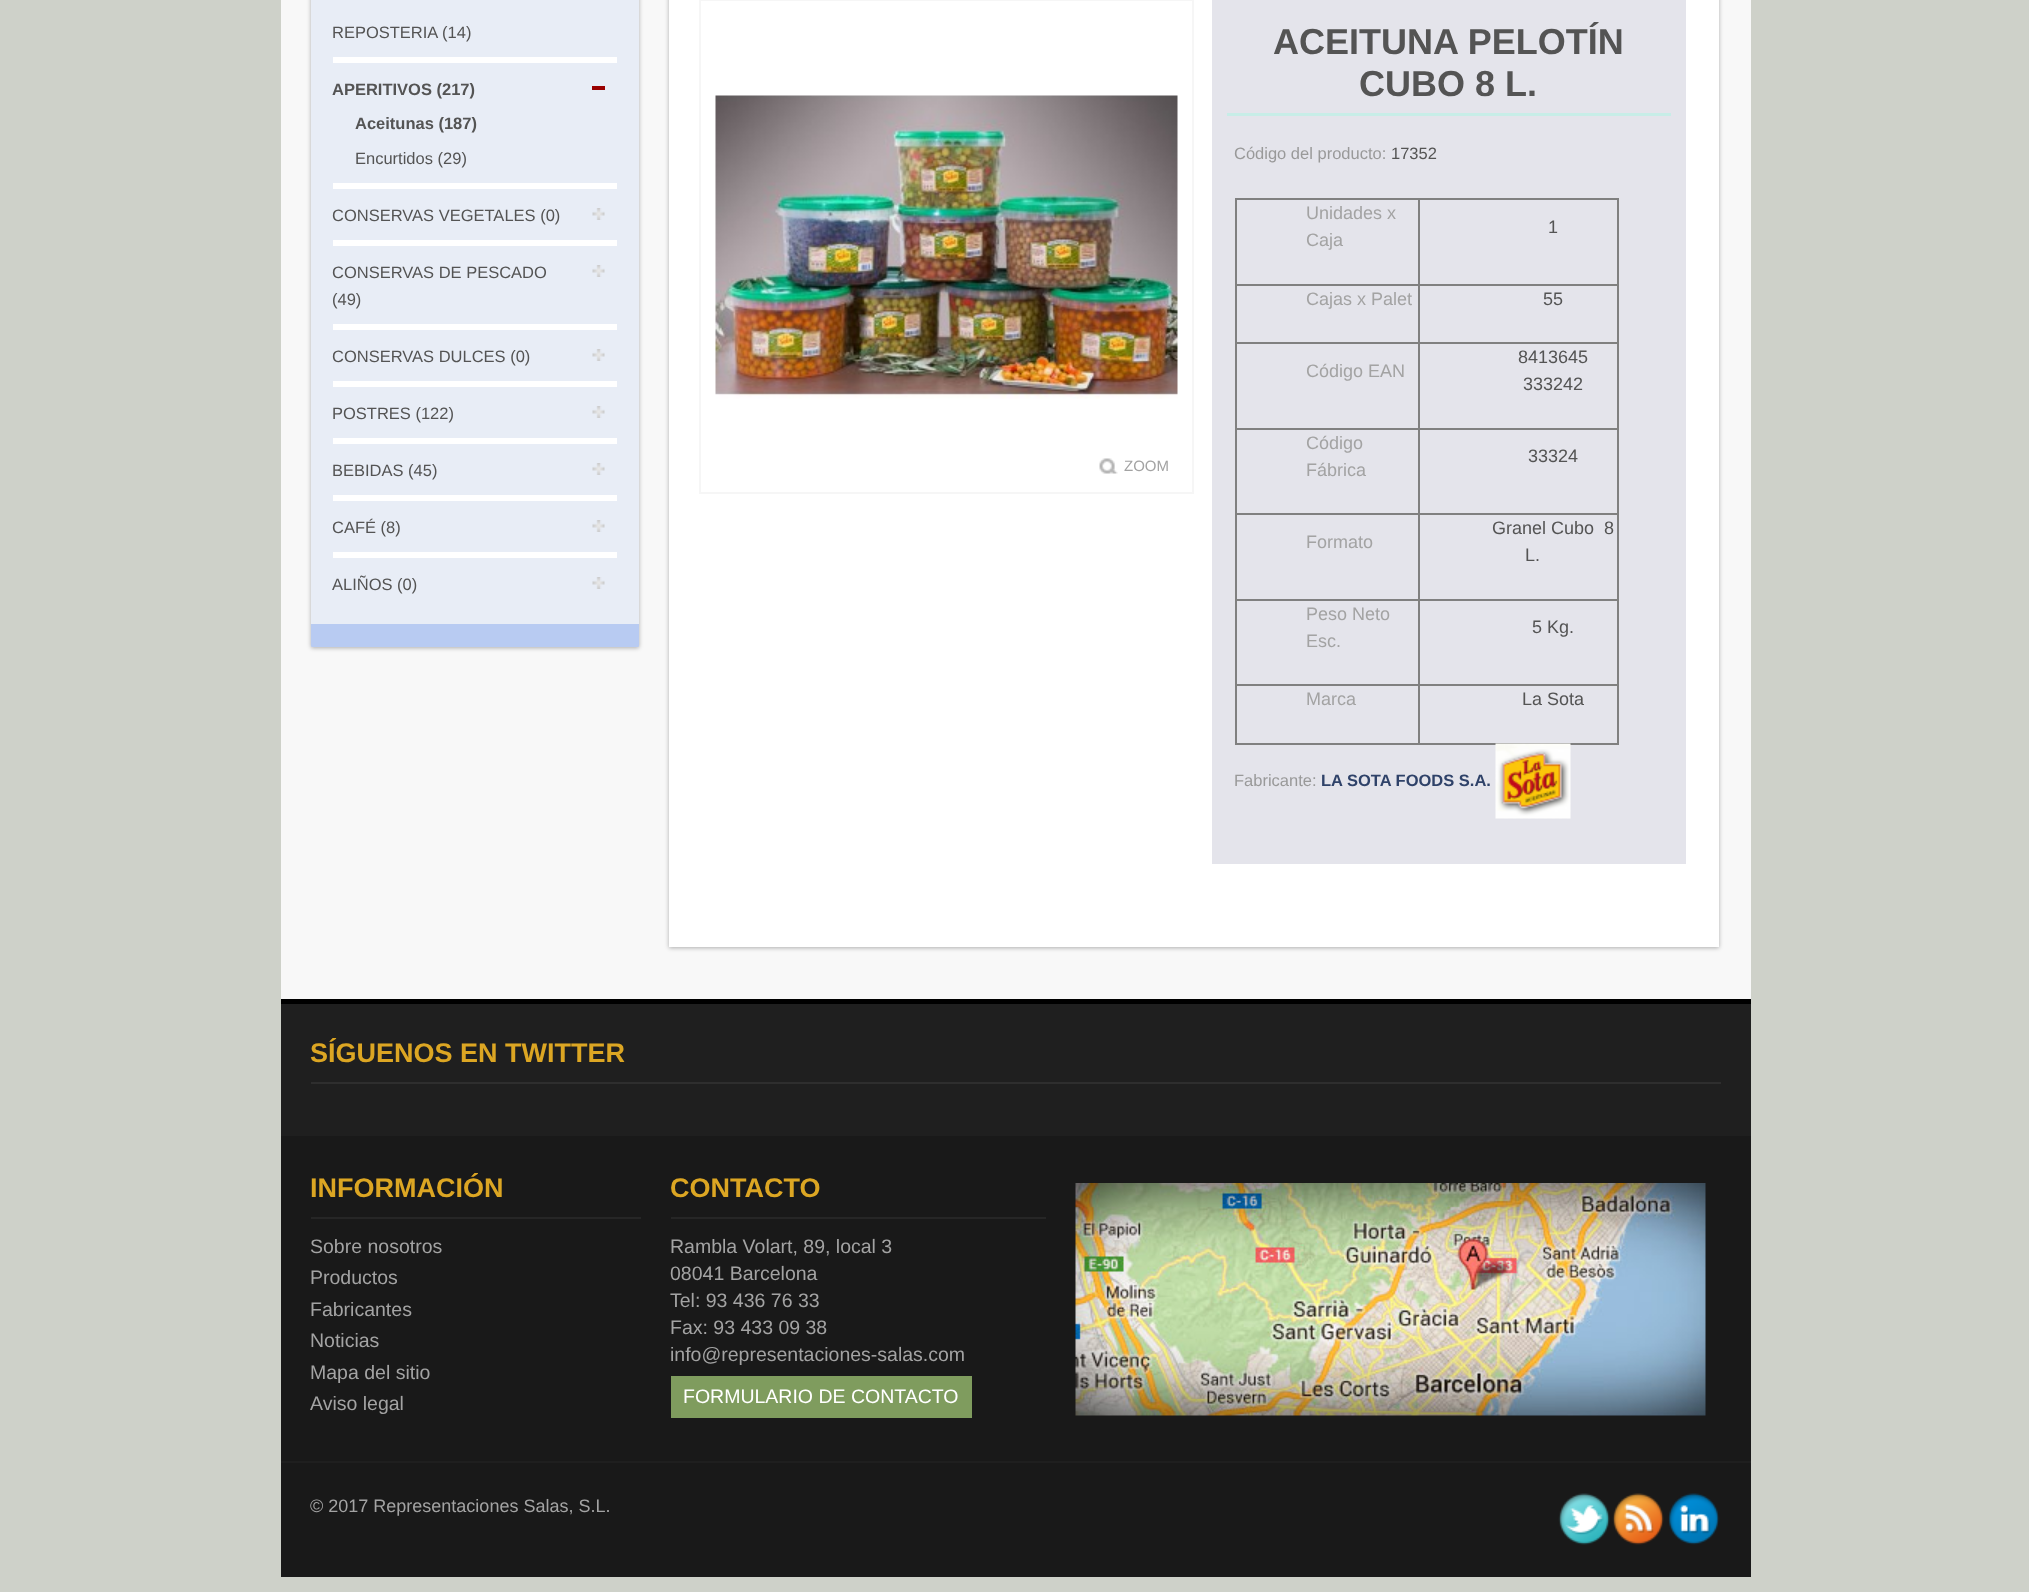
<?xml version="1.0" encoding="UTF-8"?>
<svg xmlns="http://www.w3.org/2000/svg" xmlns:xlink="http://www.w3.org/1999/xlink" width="2029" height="1592">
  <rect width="100%" height="100%" fill="#ced1c9" />
  <rect x="281" width="1470" height="999" fill="#f8f8f8" />
  <rect x="311" y="-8" width="328" height="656" rx="1.5" fill="#000000" fill-opacity="0.3" filter="blur(2px)" />
  <rect x="311" y="-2" width="328" height="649" rx="1.5" fill="#b8cbf2" />
  <rect x="311" width="328" height="624" fill="#e8edf6" />
  <rect x="333" y="57" width="284" height="6" fill="#ffffff" />
  <rect x="592" y="86" width="13" height="4" fill="#990000" />
  <rect x="333" y="183" width="284" height="6" fill="#ffffff" />
  <image x="592" y="208" width="13" height="12" xlink:href="image1.png" />
  <rect x="333" y="240" width="284" height="6" fill="#ffffff" />
  <image x="592" y="265" width="13" height="12" xlink:href="image1.png" />
  <rect x="333" y="324" width="284" height="6" fill="#ffffff" />
  <image x="592" y="349" width="13" height="12" xlink:href="image1.png" />
  <rect x="333" y="381" width="284" height="6" fill="#ffffff" />
  <image x="592" y="406" width="13" height="12" xlink:href="image1.png" />
  <rect x="333" y="438" width="284" height="6" fill="#ffffff" />
  <image x="592" y="463" width="13" height="12" xlink:href="image1.png" />
  <rect x="333" y="495" width="284" height="6" fill="#ffffff" />
  <image x="592" y="520" width="13" height="12" xlink:href="image1.png" />
  <rect x="333" y="552" width="284" height="6" fill="#ffffff" />
  <image x="592" y="577" width="13" height="12" xlink:href="image1.png" />
  <rect x="669" y="-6" width="1050" height="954" fill="#000000" fill-opacity="0.3" filter="blur(2px)" />
  <rect x="669" width="1050" height="947" fill="#ffffff" />
  <rect x="700" y="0" width="493" height="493" fill="none" stroke="#f6f6f6" stroke-width="2" />
  <image x="715" y="95" width="463" height="304" xlink:href="image2.png" />
  <image x="1099" y="458" width="19" height="16" xlink:href="image3.png" />
  <rect x="1212" width="474" height="864" fill="#e4e4eb" />
  <rect x="1227" y="113" width="444" height="3" fill="#c7ede7" />
  <rect x="1235" y="198" width="384" height="2" fill="#808080" />
  <rect x="1617" y="198" width="2" height="546" fill="#808080" />
  <rect x="1235" y="743" width="384" height="2" fill="#808080" />
  <rect x="1235" y="198" width="2" height="546" fill="#808080" />
  <rect x="1418" y="284" width="201" height="2" fill="#808080" />
  <rect x="1418" y="342" width="201" height="2" fill="#808080" />
  <rect x="1418" y="428" width="201" height="2" fill="#808080" />
  <rect x="1418" y="513" width="201" height="2" fill="#808080" />
  <rect x="1418" y="599" width="201" height="2" fill="#808080" />
  <rect x="1418" y="684" width="201" height="2" fill="#808080" />
  <rect x="1418" y="684" width="2" height="60" fill="#808080" />
  <rect x="1235" y="684" width="184" height="2" fill="#808080" />
  <rect x="1418" y="599" width="2" height="87" fill="#808080" />
  <rect x="1235" y="599" width="184" height="2" fill="#808080" />
  <rect x="1418" y="513" width="2" height="87" fill="#808080" />
  <rect x="1235" y="513" width="184" height="2" fill="#808080" />
  <rect x="1418" y="428" width="2" height="87" fill="#808080" />
  <rect x="1235" y="428" width="184" height="2" fill="#808080" />
  <rect x="1418" y="342" width="2" height="87" fill="#808080" />
  <rect x="1235" y="342" width="184" height="2" fill="#808080" />
  <rect x="1418" y="284" width="2" height="60" fill="#808080" />
  <rect x="1235" y="284" width="184" height="2" fill="#808080" />
  <rect x="1418" y="198" width="2" height="87" fill="#808080" />
  <image x="1495" y="743" width="76" height="76" xlink:href="image4.png" />
  <rect x="281" y="1004" width="1470" height="132" fill="#1f1f1f" />
  <rect x="281" y="999" width="1470" height="5" fill="#000000" />
  <rect x="311" y="1082" width="1410" height="2" fill="#2e2e2e" />
  <rect x="281" y="1136" width="1470" height="325" fill="#191919" />
  <rect x="311" y="1217" width="330" height="2" fill="#262626" />
  <rect x="671" y="1217" width="375" height="2" fill="#262626" />
  <rect x="671" y="1376" width="301" height="42" fill="#7f9c5e" />
  <image x="1075" y="1183" width="631" height="233" xlink:href="image5.png" />
  <rect x="281" y="1463" width="1470" height="114" fill="#191919" />
  <rect x="281" y="1461" width="1470" height="2" fill="#1f1f1f" />
  <image x="1558" y="1493" width="52" height="52" xlink:href="image6.png" />
  <image x="1612" y="1493" width="52" height="52" xlink:href="image7.png" />
  <image x="1668" y="1493" width="52" height="52" xlink:href="image8.png" />
  <text x="332" y="38" style="font-family: Liberation Sans; font-size: 16.5px; fill: #545454">REPOSTERIA (14)</text>
  <text x="332" y="95" style="font-family: Liberation Sans; font-size: 16.5px; font-weight: bold; fill: #545454">APERITIVOS (217)</text>
  <text x="355" y="129" style="font-family: Liberation Sans; font-size: 16.5px; font-weight: bold; fill: #545454">Aceitunas (187)</text>
  <text x="355" y="164" style="font-family: Liberation Sans; font-size: 16.5px; fill: #545454">Encurtidos (29)</text>
  <text x="332" y="221" style="font-family: Liberation Sans; font-size: 16.5px; fill: #545454">CONSERVAS VEGETALES (0)</text>
  <text x="332" y="278" style="font-family: Liberation Sans; font-size: 16.5px; fill: #545454">CONSERVAS DE PESCADO</text>
  <text x="332" y="305" style="font-family: Liberation Sans; font-size: 16.5px; fill: #545454">(49)</text>
  <text x="332" y="362" style="font-family: Liberation Sans; font-size: 16.5px; fill: #545454">CONSERVAS DULCES (0)</text>
  <text x="332" y="419" style="font-family: Liberation Sans; font-size: 16.5px; fill: #545454">POSTRES (122)</text>
  <text x="332" y="476" style="font-family: Liberation Sans; font-size: 16.5px; fill: #545454">BEBIDAS (45)</text>
  <text x="332" y="533" style="font-family: Liberation Sans; font-size: 16.5px; fill: #545454">CAFÉ (8)</text>
  <text x="332" y="590" style="font-family: Liberation Sans; font-size: 16.5px; fill: #545454">ALIÑOS (0)</text>
  <text x="1124" y="471" style="font-family: Liberation Sans; font-size: 15px; fill: #a3a3a3">ZOOM</text>
  <text x="1273" y="54" style="font-family: Liberation Sans; font-size: 36px; font-weight: bold; fill: #545454">ACEITUNA PELOTÍN</text>
  <text x="1359" y="96" style="font-family: Liberation Sans; font-size: 36px; font-weight: bold; fill: #545454">CUBO 8 L.</text>
  <text x="1234" y="159" style="font-family: Liberation Sans; font-size: 16.5px; fill: #999999">Código del producto:</text>
  <text x="1391" y="159" style="font-family: Liberation Sans; font-size: 16.5px; fill: #545454">17352</text>
  <text x="1306" y="219" style="font-family: Liberation Sans; font-size: 18px; fill: #a3a3a3">Unidades x</text>
  <text x="1306" y="246" style="font-family: Liberation Sans; font-size: 18px; fill: #a3a3a3">Caja</text>
  <text x="1548" y="233" style="font-family: Liberation Sans; font-size: 18px; fill: #545454">1</text>
  <text x="1306" y="305" style="font-family: Liberation Sans; font-size: 18px; fill: #a3a3a3">Cajas x Palet</text>
  <text x="1543" y="305" style="font-family: Liberation Sans; font-size: 18px; fill: #545454">55</text>
  <text x="1306" y="377" style="font-family: Liberation Sans; font-size: 18px; fill: #a3a3a3">Código EAN</text>
  <text x="1518" y="363" style="font-family: Liberation Sans; font-size: 18px; fill: #545454">8413645</text>
  <text x="1523" y="390" style="font-family: Liberation Sans; font-size: 18px; fill: #545454">333242</text>
  <text x="1306" y="449" style="font-family: Liberation Sans; font-size: 18px; fill: #a3a3a3">Código</text>
  <text x="1306" y="476" style="font-family: Liberation Sans; font-size: 18px; fill: #a3a3a3">Fábrica</text>
  <text x="1528" y="462" style="font-family: Liberation Sans; font-size: 18px; fill: #545454">33324</text>
  <text x="1306" y="548" style="font-family: Liberation Sans; font-size: 18px; fill: #a3a3a3">Formato</text>
  <text x="1492" y="534" style="font-family: Liberation Sans; font-size: 18px; fill: #545454" xml:space="preserve">Granel Cubo  8</text>
  <text x="1525" y="561" style="font-family: Liberation Sans; font-size: 18px; fill: #545454">L.</text>
  <text x="1306" y="620" style="font-family: Liberation Sans; font-size: 18px; fill: #a3a3a3">Peso Neto</text>
  <text x="1306" y="647" style="font-family: Liberation Sans; font-size: 18px; fill: #a3a3a3">Esc.</text>
  <text x="1532" y="633" style="font-family: Liberation Sans; font-size: 18px; fill: #545454">5 Kg.</text>
  <text x="1306" y="705" style="font-family: Liberation Sans; font-size: 18px; fill: #a3a3a3">Marca</text>
  <text x="1522" y="705" style="font-family: Liberation Sans; font-size: 18px; fill: #545454">La Sota</text>
  <text x="1234" y="786" style="font-family: Liberation Sans; font-size: 16.5px; fill: #999999">Fabricante:</text>
  <text x="1321" y="786" style="font-family: Liberation Sans; font-size: 16.5px; font-weight: bold; fill: #2f4269">LA SOTA FOODS S.A.</text>
  <text x="310" y="1062" style="font-family: Liberation Sans; font-size: 27px; font-weight: bold; fill: #dca623">SÍGUENOS EN TWITTER</text>
  <text x="310" y="1197" style="font-family: Liberation Sans; font-size: 27px; font-weight: bold; fill: #dca623">INFORMACIÓN</text>
  <text x="310" y="1253" style="font-family: Liberation Sans; font-size: 19.5px; fill: #a3a3a3">Sobre nosotros</text>
  <text x="310" y="1284" style="font-family: Liberation Sans; font-size: 19.5px; fill: #a3a3a3">Productos</text>
  <text x="310" y="1316" style="font-family: Liberation Sans; font-size: 19.5px; fill: #a3a3a3">Fabricantes</text>
  <text x="310" y="1347" style="font-family: Liberation Sans; font-size: 19.5px; fill: #a3a3a3">Noticias</text>
  <text x="310" y="1379" style="font-family: Liberation Sans; font-size: 19.5px; fill: #a3a3a3">Mapa del sitio</text>
  <text x="310" y="1410" style="font-family: Liberation Sans; font-size: 19.5px; fill: #a3a3a3">Aviso legal</text>
  <text x="670" y="1197" style="font-family: Liberation Sans; font-size: 27px; font-weight: bold; fill: #dca623">CONTACTO</text>
  <text x="670" y="1253" style="font-family: Liberation Sans; font-size: 19.5px; fill: #a3a3a3">Rambla Volart, 89, local 3</text>
  <text x="670" y="1280" style="font-family: Liberation Sans; font-size: 19.5px; fill: #a3a3a3">08041 Barcelona</text>
  <text x="670" y="1307" style="font-family: Liberation Sans; font-size: 19.5px; fill: #a3a3a3">Tel: 93 436 76 33</text>
  <text x="670" y="1334" style="font-family: Liberation Sans; font-size: 19.5px; fill: #a3a3a3">Fax: 93 433 09 38</text>
  <text x="670" y="1361" style="font-family: Liberation Sans; font-size: 19.5px; fill: #a3a3a3">info@representaciones-salas.com</text>
  <text x="683" y="1403" style="font-family: Liberation Sans; font-size: 19.5px; fill: #ffffff">FORMULARIO DE CONTACTO</text>
  <text x="310" y="1512" style="font-family: Liberation Sans; font-size: 18px; fill: #a3a3a3">© 2017 Representaciones Salas, S.L.</text>
</svg>
